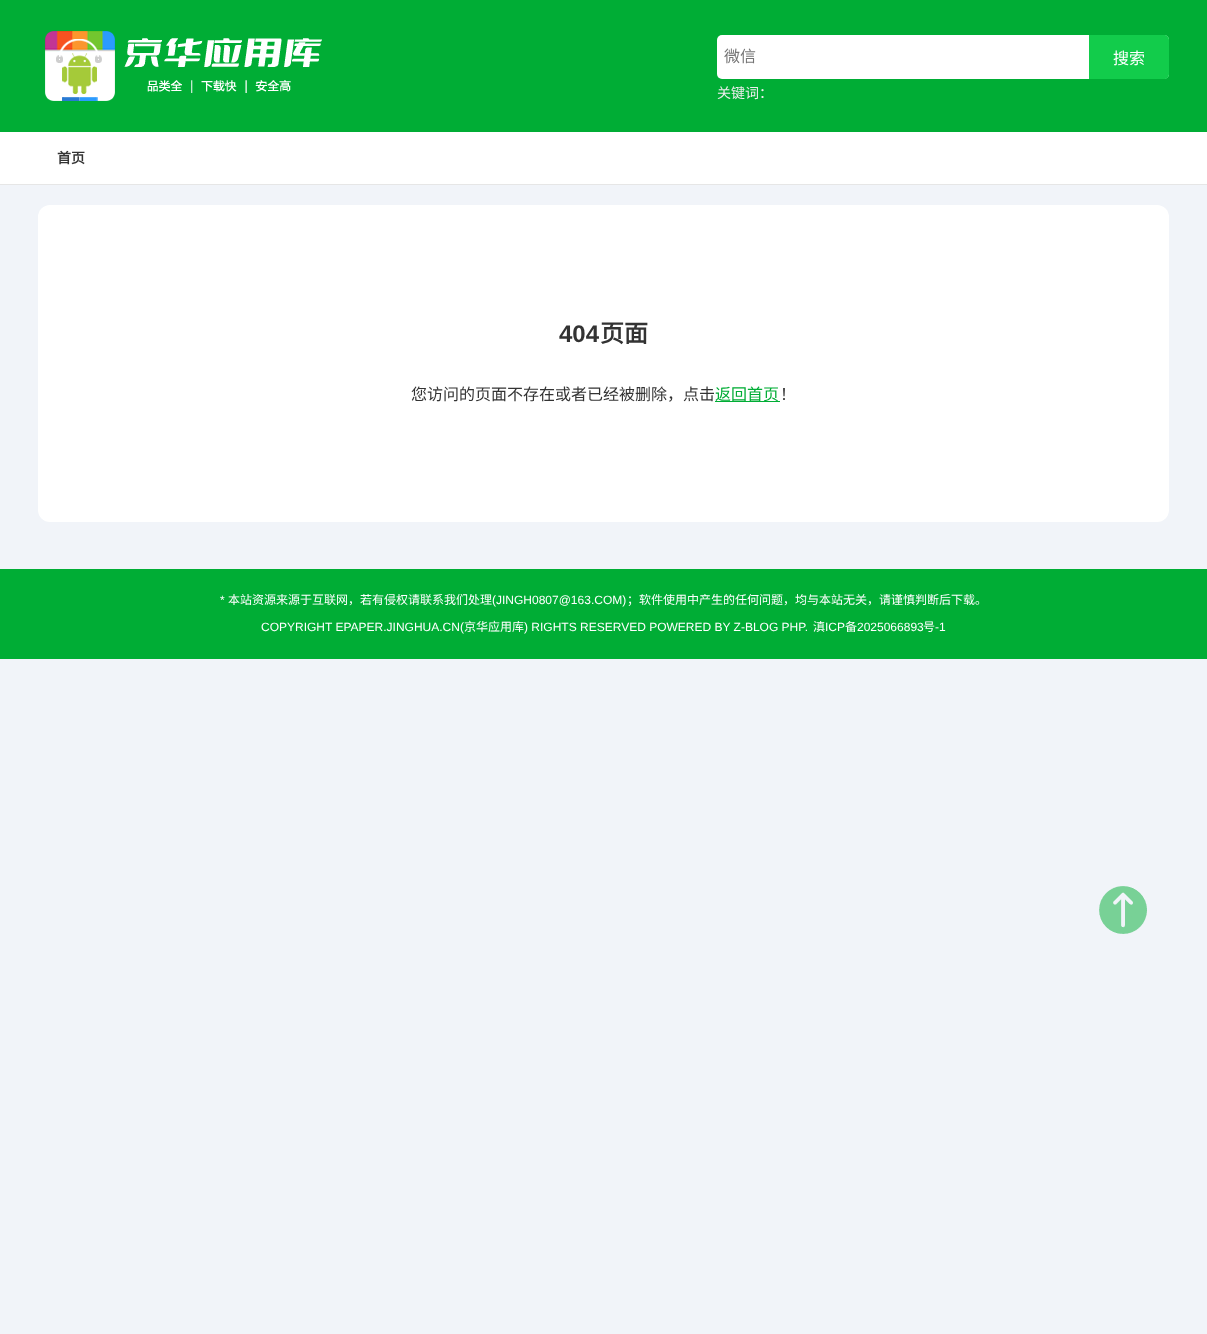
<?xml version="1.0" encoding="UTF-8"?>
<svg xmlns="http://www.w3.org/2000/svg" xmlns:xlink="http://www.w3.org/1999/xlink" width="1207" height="1334">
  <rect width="100%" height="100%" fill="#f1f4f9" />
  <rect width="1207" height="132" fill="#00ad35" />
  <image x="45" y="31" width="277" height="70" xlink:href="image1.png" />
  <rect x="717" y="35" width="452" height="44" rx="5" fill="#ffffff" />
  <path d="M 1089 35 h 75 c 3 0 5 2 5 5 v 34 c 0 3 -2 5 -5 5 h -75 z" fill="#12cc4b" />
  <rect y="132" width="1207" height="52" fill="#ffffff" />
  <rect y="184" width="1207" height="1" fill="#e6e6e6" />
  <rect x="38" y="205" width="1131" height="317" rx="12" fill="#ffffff" />
  <rect x="715" y="401" width="65" height="1" fill="#00ad35" />
  <rect y="569" width="1207" height="90" fill="#00ad35" />
  <image x="1099" y="886" width="48" height="48" xlink:href="image2.png" />
  <text x="724" y="62" style="font-family: Noto Sans CJK SC; font-size: 16px; fill: #757575">微信</text>
  <text x="1113" y="64" style="font-family: Noto Sans CJK SC; font-size: 16px; fill: #ffffff">搜索</text>
  <text x="717" y="98" style="font-family: Noto Sans CJK SC; font-size: 14px; fill: #eeeeee">关键词：</text>
  <text x="57" y="163" style="font-family: Noto Sans CJK SC; font-size: 14px; font-weight: bold; fill: #333333">首页</text>
  <text x="559" y="342" style="font-family: Liberation Sans; font-size: 24px; font-weight: bold; fill: #333333">404</text>
  <text x="600" y="342" style="font-family: Noto Sans CJK SC; font-size: 24px; font-weight: bold; fill: #333333">页面</text>
  <text x="411" y="400" style="font-family: Noto Sans CJK SC; font-size: 16px; fill: #333333">您访问的页面不存在或者已经被删除，点击</text>
  <text x="715" y="400" style="font-family: Noto Sans CJK SC; font-size: 16px; fill: #00ad35">返回首页</text>
  <text x="780" y="400" style="font-family: Noto Sans CJK SC; font-size: 16px; fill: #333333">！</text>
  <text x="220" y="604" style="font-family: Liberation Sans; font-size: 12px; fill: #ffffff">*</text>
  <text x="228" y="604" style="font-family: Noto Sans CJK SC; font-size: 12px; fill: #ffffff">本站资源来源于互联网，若有侵权请联系我们处理</text>
  <text x="492" y="604" style="font-family: Liberation Sans; font-size: 12px; fill: #ffffff">(JINGH0807@163.COM)</text>
  <text x="627" y="604" style="font-family: Noto Sans CJK SC; font-size: 12px; fill: #ffffff">；软件使用中产生的任何问题，均与本站无关，请谨慎判断后下载。</text>
  <text x="261" y="631" style="font-family: Liberation Sans; font-size: 12px; fill: #ffffff">COPYRIGHT EPAPER.JINGHUA.CN(</text>
  <text x="464" y="631" style="font-family: Noto Sans CJK SC; font-size: 12px; fill: #ffffff">京华应用库</text>
  <text x="524" y="631" style="font-family: Liberation Sans; font-size: 12px; fill: #ffffff">) RIGHTS RESERVED POWERED BY Z-BLOG PHP.</text>
  <text x="813" y="631" style="font-family: Noto Sans CJK SC; font-size: 12px; fill: #ffffff">滇</text>
  <text x="825" y="631" style="font-family: Liberation Sans; font-size: 12px; fill: #ffffff">ICP</text>
  <text x="845" y="631" style="font-family: Noto Sans CJK SC; font-size: 12px; fill: #ffffff">备</text>
  <text x="857" y="631" style="font-family: Liberation Sans; font-size: 12px; fill: #ffffff">2025066893</text>
  <text x="923" y="631" style="font-family: Noto Sans CJK SC; font-size: 12px; fill: #ffffff">号</text>
  <text x="935" y="631" style="font-family: Liberation Sans; font-size: 12px; fill: #ffffff">-1</text>
</svg>
